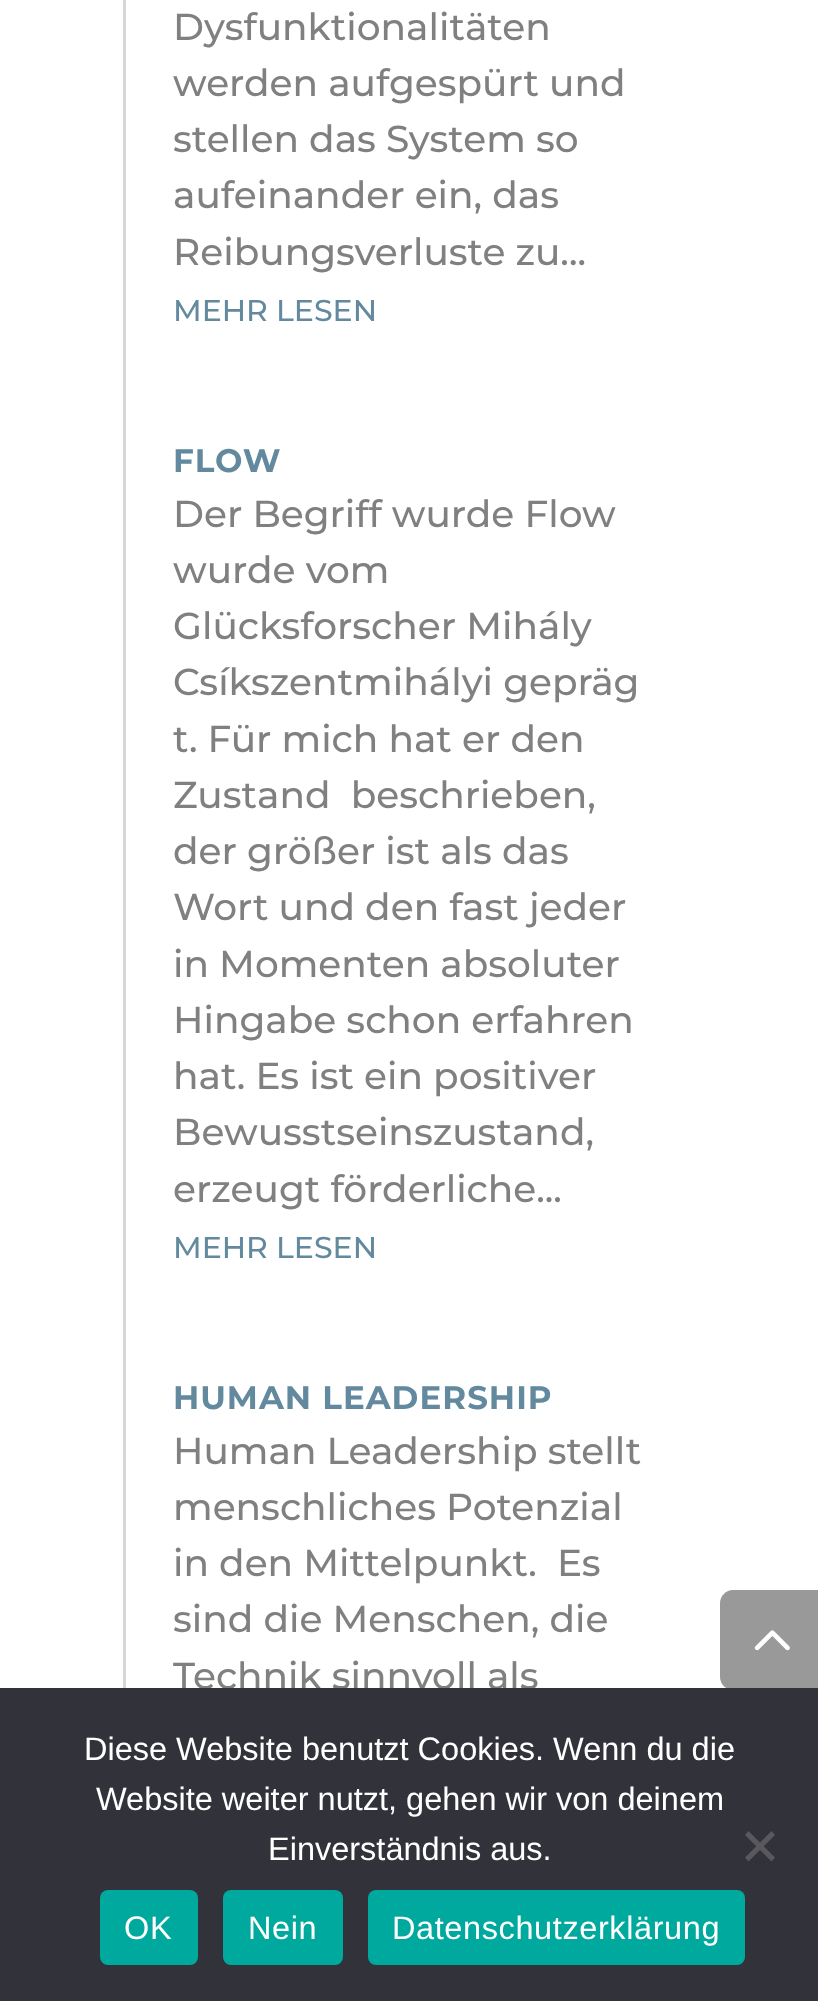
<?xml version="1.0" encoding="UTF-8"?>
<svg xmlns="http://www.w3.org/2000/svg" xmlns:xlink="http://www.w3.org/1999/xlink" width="818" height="2001">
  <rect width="100%" height="100%" fill="#ffffff" />
  <rect x="123" width="3" height="1688" fill="#d6d6d6" />
  <path d="M 733 1590 h 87 v 100 h -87 c -7 0 -13 -6 -13 -13 v -74 c 0 -7 6 -13 13 -13 z" fill="#999999" />
  <image x="754" y="1630" width="36" height="21" xlink:href="image1.png" />
  <text x="173" y="40" style="font-family: Montserrat; font-size: 37.5px; font-weight: 500; fill: #808080">Dysfunktionalitäten</text>
  <text x="173" y="96" style="font-family: Montserrat; font-size: 37.5px; font-weight: 500; fill: #808080">werden aufgespürt und</text>
  <text x="173" y="152" style="font-family: Montserrat; font-size: 37.5px; font-weight: 500; fill: #808080">stellen das System so</text>
  <text x="173" y="208" style="font-family: Montserrat; font-size: 37.5px; font-weight: 500; fill: #808080">aufeinander ein, das</text>
  <text x="173" y="265" style="font-family: Montserrat; font-size: 37.5px; font-weight: 500; fill: #808080">Reibungsverluste zu...</text>
  <text x="173" y="321" style="font-family: Montserrat; font-size: 30px; font-weight: 500; fill: #62899e">MEHR LESEN</text>
  <text x="173" y="472" style="font-family: Montserrat; font-size: 32.5px; font-weight: bold; letter-spacing: 1px; fill: #62899e">FLOW</text>
  <text x="173" y="527" style="font-family: Montserrat; font-size: 37.5px; font-weight: 500; fill: #808080">Der Begriff wurde Flow</text>
  <text x="173" y="583" style="font-family: Montserrat; font-size: 37.5px; font-weight: 500; fill: #808080">wurde vom</text>
  <text x="173" y="639" style="font-family: Montserrat; font-size: 37.5px; font-weight: 500; fill: #808080">Glücksforscher Mihály</text>
  <text x="173" y="695" style="font-family: Montserrat; font-size: 37.5px; font-weight: 500; fill: #808080">Csíkszentmihályi gepräg</text>
  <text x="173" y="752" style="font-family: Montserrat; font-size: 37.5px; font-weight: 500; fill: #808080">t. Für mich hat er den</text>
  <text x="173" y="808" style="font-family: Montserrat; font-size: 37.5px; font-weight: 500; fill: #808080" xml:space="preserve">Zustand  beschrieben,</text>
  <text x="173" y="864" style="font-family: Montserrat; font-size: 37.5px; font-weight: 500; fill: #808080">der größer ist als das</text>
  <text x="173" y="920" style="font-family: Montserrat; font-size: 37.5px; font-weight: 500; fill: #808080">Wort und den fast jeder</text>
  <text x="173" y="977" style="font-family: Montserrat; font-size: 37.5px; font-weight: 500; fill: #808080">in Momenten absoluter</text>
  <text x="173" y="1033" style="font-family: Montserrat; font-size: 37.5px; font-weight: 500; fill: #808080">Hingabe schon erfahren</text>
  <text x="173" y="1089" style="font-family: Montserrat; font-size: 37.5px; font-weight: 500; fill: #808080">hat. Es ist ein positiver</text>
  <text x="173" y="1145" style="font-family: Montserrat; font-size: 37.5px; font-weight: 500; fill: #808080">Bewusstseinszustand,</text>
  <text x="173" y="1202" style="font-family: Montserrat; font-size: 37.5px; font-weight: 500; fill: #808080">erzeugt förderliche...</text>
  <text x="173" y="1258" style="font-family: Montserrat; font-size: 30px; font-weight: 500; fill: #62899e">MEHR LESEN</text>
  <text x="173" y="1409" style="font-family: Montserrat; font-size: 32.5px; font-weight: bold; letter-spacing: 1px; fill: #62899e">HUMAN LEADERSHIP</text>
  <text x="173" y="1464" style="font-family: Montserrat; font-size: 37.5px; font-weight: 500; fill: #808080">Human Leadership stellt</text>
  <text x="173" y="1520" style="font-family: Montserrat; font-size: 37.5px; font-weight: 500; fill: #808080">menschliches Potenzial</text>
  <text x="173" y="1576" style="font-family: Montserrat; font-size: 37.5px; font-weight: 500; fill: #808080" xml:space="preserve">in den Mittelpunkt.  Es</text>
  <text x="173" y="1632" style="font-family: Montserrat; font-size: 37.5px; font-weight: 500; fill: #808080">sind die Menschen, die</text>
  <text x="173" y="1689" style="font-family: Montserrat; font-size: 37.5px; font-weight: 500; fill: #808080">Technik sinnvoll als</text>
  <rect y="1688" width="818" height="313" fill="#32323a" />
  <text x="84" y="1760" style="font-family: Liberation Sans; font-size: 32.5px; fill: #ffffff">Diese Website benutzt Cookies. Wenn du die</text>
  <text x="96" y="1810" style="font-family: Liberation Sans; font-size: 32.5px; fill: #ffffff">Website weiter nutzt, gehen wir von deinem</text>
  <text x="268" y="1860" style="font-family: Liberation Sans; font-size: 32.5px; fill: #ffffff">Einverständnis aus.</text>
  <path d="M 771.5 1831 l 3.5 4 l -26.5 26.5 l -3.5 -4 z" fill="#59595d" />
  <path d="M 745 1835 l 3.5 -4 l 26.5 26.5 l -3.5 4 z" fill="#59595d" />
  <rect x="100" y="1890" width="98" height="75" rx="8" fill="#00a99d" />
  <text x="124" y="1939" style="font-family: Liberation Sans; font-size: 32.5px; letter-spacing: 0.6px; fill: #ffffff">OK</text>
  <rect x="223" y="1890" width="120" height="75" rx="8" fill="#00a99d" />
  <text x="248" y="1939" style="font-family: Liberation Sans; font-size: 32.5px; letter-spacing: 0.6px; fill: #ffffff">Nein</text>
  <rect x="368" y="1890" width="377" height="75" rx="8" fill="#00a99d" />
  <text x="392" y="1939" style="font-family: Liberation Sans; font-size: 32.5px; letter-spacing: 0.6px; fill: #ffffff">Datenschutzerklärung</text>
</svg>
